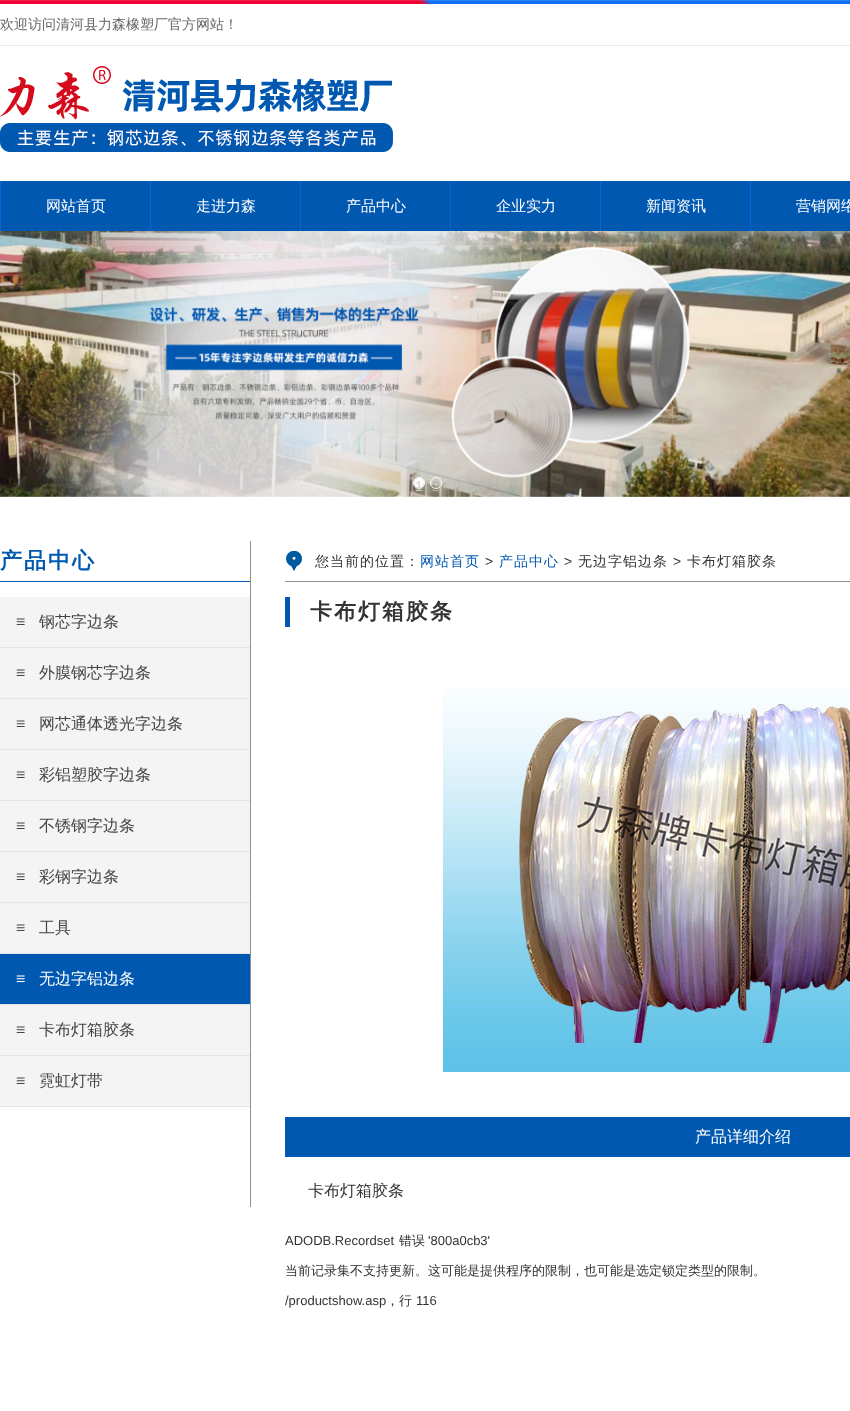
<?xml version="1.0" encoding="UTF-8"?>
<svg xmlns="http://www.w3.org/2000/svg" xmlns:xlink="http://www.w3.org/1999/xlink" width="850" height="1411">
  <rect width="100%" height="100%" fill="#ffffff" />
  <image x="0" y="0" width="850" height="4" xlink:href="image1.png" />
  <rect y="45" width="850" height="1" fill="#e8e8e8" />
  <image x="0" y="66" width="393" height="86" xlink:href="image2.png" />
  <rect x="1" y="181" width="849" height="50" fill="#0058b1" />
  <rect y="181" width="1" height="50" fill="#0068d2" />
  <rect x="150" y="181" width="1" height="50" fill="#0068d2" />
  <rect x="300" y="181" width="1" height="50" fill="#0068d2" />
  <rect x="450" y="181" width="1" height="50" fill="#0068d2" />
  <rect x="600" y="181" width="1" height="50" fill="#0068d2" />
  <rect x="750" y="181" width="1" height="50" fill="#0068d2" />
  <image x="0" y="231" width="850" height="266" xlink:href="image3.png" />
  <circle cx="419" cy="483" r="5.5" fill="none" stroke="#ffffff" />
  <circle cx="419" cy="483" r="5" fill="#ffffff" />
  <circle cx="436" cy="483" r="5.5" fill="none" stroke="#ffffff" />
  <rect x="250" y="541" width="1" height="666" fill="#8f8f8f" />
  <rect y="581" width="250" height="1" fill="#0058b1" />
  <rect y="597" width="250" height="50" fill="#f4f4f4" />
  <rect y="647" width="250" height="1" fill="#e4e4e4" />
  <rect y="648" width="250" height="50" fill="#f4f4f4" />
  <rect y="698" width="250" height="1" fill="#e4e4e4" />
  <rect y="699" width="250" height="50" fill="#f4f4f4" />
  <rect y="749" width="250" height="1" fill="#e4e4e4" />
  <rect y="750" width="250" height="50" fill="#f4f4f4" />
  <rect y="800" width="250" height="1" fill="#e4e4e4" />
  <rect y="801" width="250" height="50" fill="#f4f4f4" />
  <rect y="851" width="250" height="1" fill="#e4e4e4" />
  <rect y="852" width="250" height="50" fill="#f4f4f4" />
  <rect y="902" width="250" height="1" fill="#e4e4e4" />
  <rect y="903" width="250" height="50" fill="#f4f4f4" />
  <rect y="953" width="250" height="1" fill="#e4e4e4" />
  <rect y="1004" width="250" height="1" fill="#e4e4e4" />
  <rect y="954" width="250" height="50" fill="#0058b1" />
  <rect y="1005" width="250" height="50" fill="#f4f4f4" />
  <rect y="1055" width="250" height="1" fill="#e4e4e4" />
  <rect y="1056" width="250" height="50" fill="#f4f4f4" />
  <rect y="1106" width="250" height="1" fill="#e4e4e4" />
  <rect x="285" y="581" width="565" height="1" fill="#8f8f8f" />
  <image x="286" y="551" width="16" height="20" xlink:href="image4.png" />
  <rect x="285" y="597" width="5" height="30" fill="#0058b1" />
  <image x="443" y="688" width="407" height="384" xlink:href="image5.png" />
  <rect x="285" y="1117" width="565" height="40" fill="#0058b1" />
  <text x="0" y="29" style="font-family: WenQuanYi Zen Hei; font-size: 14px; font-weight: 500; fill: #666666">欢迎访问清河县力森橡塑厂官方网站！</text>
  <text x="46" y="211" style="font-family: WenQuanYi Zen Hei; font-size: 15px; font-weight: 500; fill: #ffffff">网站首页</text>
  <text x="196" y="211" style="font-family: WenQuanYi Zen Hei; font-size: 15px; font-weight: 500; fill: #ffffff">走进力森</text>
  <text x="346" y="211" style="font-family: WenQuanYi Zen Hei; font-size: 15px; font-weight: 500; fill: #ffffff">产品中心</text>
  <text x="496" y="211" style="font-family: WenQuanYi Zen Hei; font-size: 15px; font-weight: 500; fill: #ffffff">企业实力</text>
  <text x="646" y="211" style="font-family: WenQuanYi Zen Hei; font-size: 15px; font-weight: 500; fill: #ffffff">新闻资讯</text>
  <text x="796" y="211" style="font-family: WenQuanYi Zen Hei; font-size: 15px; font-weight: 500; fill: #ffffff">营销网络</text>
  <text x="415" y="491" style="font-family: Liberation Sans; font-size: 14px; fill: #cfcdc6">1</text>
  <text x="432" y="491" style="font-family: Liberation Sans; font-size: 14px; fill: #b1aea1">2</text>
  <text x="0" y="568" style="font-family: WenQuanYi Zen Hei; font-size: 22px; font-weight: bold; letter-spacing: 2px; fill: #0058b1">产品中心</text>
  <text x="16" y="627" style="font-family: Liberation Sans; font-size: 16px; fill: #444444">≡</text>
  <text x="39" y="627" style="font-family: WenQuanYi Zen Hei; font-size: 16px; font-weight: 500; fill: #444444">钢芯字边条</text>
  <text x="16" y="678" style="font-family: Liberation Sans; font-size: 16px; fill: #444444">≡</text>
  <text x="39" y="678" style="font-family: WenQuanYi Zen Hei; font-size: 16px; font-weight: 500; fill: #444444">外膜钢芯字边条</text>
  <text x="16" y="729" style="font-family: Liberation Sans; font-size: 16px; fill: #444444">≡</text>
  <text x="39" y="729" style="font-family: WenQuanYi Zen Hei; font-size: 16px; font-weight: 500; fill: #444444">网芯通体透光字边条</text>
  <text x="16" y="780" style="font-family: Liberation Sans; font-size: 16px; fill: #444444">≡</text>
  <text x="39" y="780" style="font-family: WenQuanYi Zen Hei; font-size: 16px; font-weight: 500; fill: #444444">彩铝塑胶字边条</text>
  <text x="16" y="831" style="font-family: Liberation Sans; font-size: 16px; fill: #444444">≡</text>
  <text x="39" y="831" style="font-family: WenQuanYi Zen Hei; font-size: 16px; font-weight: 500; fill: #444444">不锈钢字边条</text>
  <text x="16" y="882" style="font-family: Liberation Sans; font-size: 16px; fill: #444444">≡</text>
  <text x="39" y="882" style="font-family: WenQuanYi Zen Hei; font-size: 16px; font-weight: 500; fill: #444444">彩钢字边条</text>
  <text x="16" y="933" style="font-family: Liberation Sans; font-size: 16px; fill: #444444">≡</text>
  <text x="39" y="933" style="font-family: WenQuanYi Zen Hei; font-size: 16px; font-weight: 500; fill: #444444">工具</text>
  <text x="16" y="984" style="font-family: Liberation Sans; font-size: 16px; fill: #ffffff">≡</text>
  <text x="39" y="984" style="font-family: WenQuanYi Zen Hei; font-size: 16px; font-weight: 500; fill: #ffffff">无边字铝边条</text>
  <text x="16" y="1035" style="font-family: Liberation Sans; font-size: 16px; fill: #444444">≡</text>
  <text x="39" y="1035" style="font-family: WenQuanYi Zen Hei; font-size: 16px; font-weight: 500; fill: #444444">卡布灯箱胶条</text>
  <text x="16" y="1086" style="font-family: Liberation Sans; font-size: 16px; fill: #444444">≡</text>
  <text x="39" y="1086" style="font-family: WenQuanYi Zen Hei; font-size: 16px; font-weight: 500; fill: #444444">霓虹灯带</text>
  <text x="315" y="566" style="font-family: WenQuanYi Zen Hei; font-size: 14px; font-weight: 500; letter-spacing: 1px; fill: #333333">您当前的位置：</text>
  <text x="420" y="566" style="font-family: WenQuanYi Zen Hei; font-size: 14px; font-weight: 500; letter-spacing: 1px; fill: #0058b1">网站首页</text>
  <text x="485" y="566" style="font-family: Liberation Sans; font-size: 14px; letter-spacing: 1px; fill: #333333">&gt;</text>
  <text x="499" y="566" style="font-family: WenQuanYi Zen Hei; font-size: 14px; font-weight: 500; letter-spacing: 1px; fill: #0058b1">产品中心</text>
  <text x="564" y="566" style="font-family: Liberation Sans; font-size: 14px; letter-spacing: 1px; fill: #333333">&gt;</text>
  <text x="578" y="566" style="font-family: WenQuanYi Zen Hei; font-size: 14px; font-weight: 500; letter-spacing: 1px; fill: #333333">无边字铝边条</text>
  <text x="673" y="566" style="font-family: Liberation Sans; font-size: 14px; letter-spacing: 1px; fill: #333333">&gt;</text>
  <text x="687" y="566" style="font-family: WenQuanYi Zen Hei; font-size: 14px; font-weight: 500; letter-spacing: 1px; fill: #333333">卡布灯箱胶条</text>
  <text x="310" y="619" style="font-family: WenQuanYi Zen Hei; font-size: 22px; font-weight: bold; letter-spacing: 2px; fill: #333333">卡布灯箱胶条</text>
  <text x="695" y="1142" style="font-family: WenQuanYi Zen Hei; font-size: 16px; font-weight: 500; fill: #ffffff">产品详细介绍</text>
  <text x="308" y="1196" style="font-family: WenQuanYi Zen Hei; font-size: 16px; font-weight: 500; fill: #333333">卡布灯箱胶条</text>
  <text x="285" y="1245" style="font-family: Liberation Sans; font-size: 13px; fill: #333333">ADODB.Recordset</text>
  <text x="399" y="1245" style="font-family: WenQuanYi Zen Hei; font-size: 13px; font-weight: 500; fill: #333333">错误</text>
  <text x="428" y="1245" style="font-family: Liberation Sans; font-size: 13px; fill: #333333">'800a0cb3'</text>
  <text x="285" y="1275" style="font-family: WenQuanYi Zen Hei; font-size: 13px; font-weight: 500; fill: #333333">当前记录集不支持更新。这可能是提供程序的限制，也可能是选定锁定类型的限制。</text>
  <text x="285" y="1305" style="font-family: Liberation Sans; font-size: 13px; fill: #333333">/productshow.asp</text>
  <text x="386" y="1305" style="font-family: WenQuanYi Zen Hei; font-size: 13px; font-weight: 500; fill: #333333">，行</text>
  <text x="416" y="1305" style="font-family: Liberation Sans; font-size: 13px; fill: #333333">116</text>
</svg>
